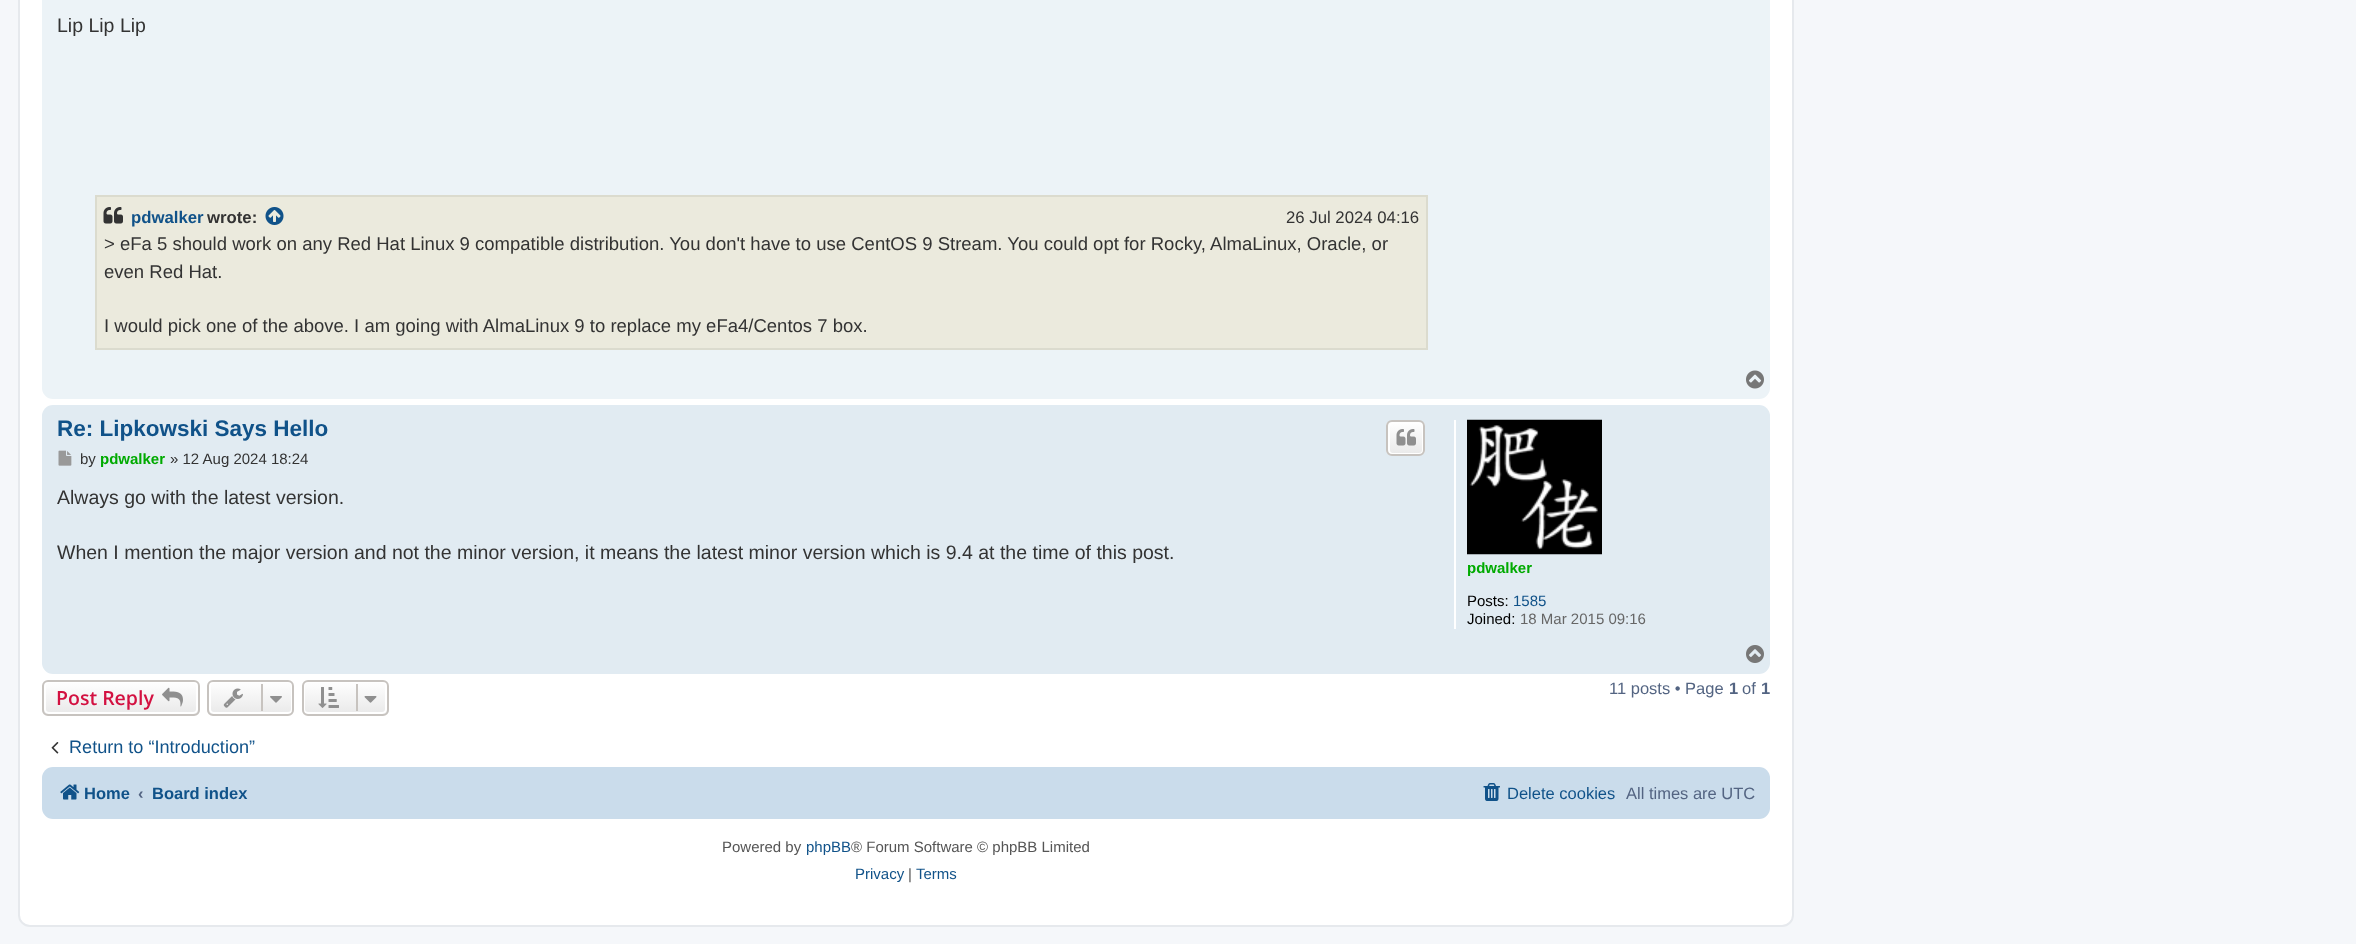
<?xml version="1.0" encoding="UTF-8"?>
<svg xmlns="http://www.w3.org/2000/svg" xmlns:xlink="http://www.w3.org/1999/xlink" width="2356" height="944">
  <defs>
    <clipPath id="clip1"><rect x="1386" y="420" width="39" height="36" rx="6" /></clipPath>
    <linearGradient id="g1" gradientUnits="userSpaceOnUse" x1="1406" y1="422" x2="1406" y2="455"><stop offset="0" stop-color="#ffffff" /><stop offset="1" stop-color="#e9e9e9" /></linearGradient>
    <clipPath id="clip2"><rect x="42" y="680" width="158" height="36" rx="6" /></clipPath>
    <linearGradient id="g2" gradientUnits="userSpaceOnUse" x1="121" y1="681" x2="121" y2="714"><stop offset="0" stop-color="#ffffff" /><stop offset="1" stop-color="#e9e9e9" /></linearGradient>
    <clipPath id="clip3"><rect x="207" y="680" width="87" height="36" rx="6" /></clipPath>
    <linearGradient id="g3" gradientUnits="userSpaceOnUse" x1="251" y1="681" x2="251" y2="714"><stop offset="0" stop-color="#ffffff" /><stop offset="1" stop-color="#e9e9e9" /></linearGradient>
    <clipPath id="clip4"><rect x="302" y="680" width="87" height="36" rx="6" /></clipPath>
    <linearGradient id="g4" gradientUnits="userSpaceOnUse" x1="345" y1="681" x2="345" y2="714"><stop offset="0" stop-color="#ffffff" /><stop offset="1" stop-color="#e9e9e9" /></linearGradient>
  </defs>
  <rect width="100%" height="100%" fill="#f5f7fa" />
  <rect x="19" y="-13" width="1774" height="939" rx="11" fill="#ffffff" stroke="#e6e9ed" stroke-width="2" />
  <rect x="42" y="-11" width="1728" height="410" rx="11" fill="#ecf3f7" />
  <rect x="96" y="196" width="1331" height="153" fill="#ebeadd" stroke="#dbdbce" stroke-width="2" />
  <image x="103" y="207" width="20" height="17" xlink:href="image1.png" />
  <image x="265" y="207" width="19" height="18" xlink:href="image2.png" />
  <image x="1746" y="370" width="18" height="19" xlink:href="image3.png" />
  <rect x="42" y="405" width="1728" height="269" rx="11" fill="#e1ebf2" />
  <g clip-path="url(#clip1)">
    <rect x="1386" y="422" width="39" height="33" fill="url(#g1)" />
  </g>
  <rect x="1389" y="423" width="34" height="31" rx="4" fill="none" stroke="#ffffff" stroke-width="2" />
  <rect x="1387" y="421" width="37" height="34" rx="5" fill="none" stroke="#c7c3bf" stroke-width="2" />
  <image x="1396" y="429" width="20" height="17" xlink:href="image4.png" />
  <image x="58" y="450" width="14" height="16" xlink:href="image5.png" />
  <rect x="1454" y="420" width="2" height="209" fill="#ffffff" />
  <image x="1467" y="419" width="135" height="136" xlink:href="image6.png" />
  <image x="1746" y="645" width="18" height="18" xlink:href="image7.png" />
  <g clip-path="url(#clip2)">
    <rect x="42" y="681" width="158" height="33" fill="url(#g2)" />
  </g>
  <rect x="45" y="682" width="152" height="31" rx="4" fill="none" stroke="#ffffff" stroke-width="2" />
  <rect x="43" y="681" width="156" height="34" rx="5" fill="none" stroke="#c7c3bf" stroke-width="2" />
  <image x="162" y="687" width="21" height="20" xlink:href="image8.png" />
  <g clip-path="url(#clip3)">
    <rect x="207" y="681" width="87" height="33" fill="url(#g3)" />
  </g>
  <rect x="210" y="682" width="82" height="31" rx="4" fill="none" stroke="#ffffff" stroke-width="2" />
  <rect x="208" y="681" width="85" height="34" rx="5" fill="none" stroke="#c7c3bf" stroke-width="2" />
  <image x="223" y="688" width="20" height="20" xlink:href="image9.png" />
  <rect x="261" y="684" width="2" height="27" fill="#c7c3bf" />
  <image x="270" y="696" width="12" height="7" xlink:href="image10.png" />
  <g clip-path="url(#clip4)">
    <rect x="302" y="681" width="87" height="33" fill="url(#g4)" />
  </g>
  <rect x="304" y="682" width="82" height="31" rx="4" fill="none" stroke="#ffffff" stroke-width="2" />
  <rect x="303" y="681" width="85" height="34" rx="5" fill="none" stroke="#c7c3bf" stroke-width="2" />
  <image x="318" y="687" width="21" height="21" xlink:href="image11.png" />
  <rect x="356" y="684" width="2" height="27" fill="#c7c3bf" />
  <image x="364" y="696" width="13" height="7" xlink:href="image12.png" />
  <image x="51" y="742" width="8" height="12" xlink:href="image13.png" />
  <rect x="42" y="767" width="1728" height="52" rx="11" fill="#cadceb" />
  <image x="60" y="784" width="20" height="16" xlink:href="image14.png" />
  <image x="1483" y="783" width="17" height="18" xlink:href="image15.png" />
  <text x="57" y="32" style="font-family: Liberation Sans; font-size: 19.5px; fill: #333333">Lip Lip Lip</text>
  <text x="131" y="223" style="font-family: Liberation Sans; font-size: 16.75px; font-weight: bold; fill: #105289">pdwalker</text>
  <text x="207" y="223" style="font-family: Liberation Sans; font-size: 16.75px; font-weight: bold; fill: #333333">wrote:</text>
  <text x="1286" y="223" style="font-family: Liberation Sans; font-size: 16.75px; fill: #333333">26 Jul 2024 04:16</text>
  <text x="104" y="250" style="font-family: Liberation Sans; font-size: 18.52px; fill: #333333">&gt; eFa 5 should work on any Red Hat Linux 9 compatible distribution. You don't have to use CentOS 9 Stream. You could opt for Rocky, AlmaLinux, Oracle, or</text>
  <text x="104" y="278" style="font-family: Liberation Sans; font-size: 18.52px; fill: #333333">even Red Hat.</text>
  <text x="104" y="332" style="font-family: Liberation Sans; font-size: 18.52px; fill: #333333">I would pick one of the above. I am going with AlmaLinux 9 to replace my eFa4/Centos 7 box.</text>
  <text x="57" y="436" style="font-family: Liberation Sans; font-size: 22.5px; font-weight: bold; fill: #105289">Re: Lipkowski Says Hello</text>
  <text x="80" y="464" style="font-family: Liberation Sans; font-size: 15px; fill: #333333">by</text>
  <text x="100" y="464" style="font-family: Liberation Sans; font-size: 15px; font-weight: bold; fill: #00aa00">pdwalker</text>
  <text x="170" y="464" style="font-family: Liberation Sans; font-size: 15px; fill: #333333">» 12 Aug 2024 18:24</text>
  <text x="57" y="504" style="font-family: Liberation Sans; font-size: 19.5px; fill: #333333">Always go with the latest version.</text>
  <text x="57" y="559" style="font-family: Liberation Sans; font-size: 19.5px; fill: #333333">When I mention the major version and not the minor version, it means the latest minor version which is 9.4 at the time of this post.</text>
  <text x="1467" y="573" style="font-family: Liberation Sans; font-size: 15px; font-weight: bold; fill: #00aa00">pdwalker</text>
  <text x="1467" y="606" style="font-family: Liberation Sans; font-size: 15px; fill: #000000">Posts:</text>
  <text x="1513" y="606" style="font-family: Liberation Sans; font-size: 15px; fill: #105289">1585</text>
  <text x="1467" y="624" style="font-family: Liberation Sans; font-size: 15px; fill: #000000">Joined:</text>
  <text x="1520" y="624" style="font-family: Liberation Sans; font-size: 15px; fill: #666666">18 Mar 2015 09:16</text>
  <text x="56" y="705" style="font-family: Open Sans; font-size: 19.5px; font-weight: 600; fill: #d31141">Post Reply</text>
  <text x="1609" y="694" style="font-family: Liberation Sans; font-size: 16.5px; fill: #536482">11 posts • Page</text>
  <text x="1729" y="694" style="font-family: Liberation Sans; font-size: 16.5px; font-weight: bold; fill: #536482">1</text>
  <text x="1742" y="694" style="font-family: Liberation Sans; font-size: 16.5px; fill: #536482">of</text>
  <text x="1761" y="694" style="font-family: Liberation Sans; font-size: 16.5px; font-weight: bold; fill: #536482">1</text>
  <text x="69" y="753" style="font-family: Liberation Sans; font-size: 18.1px; fill: #105289">Return to “Introduction”</text>
  <text x="84" y="799" style="font-family: Liberation Sans; font-size: 16.5px; font-weight: bold; fill: #105289">Home</text>
  <text x="138" y="799" style="font-family: Liberation Sans; font-size: 16.5px; font-weight: bold; fill: #536482">‹</text>
  <text x="152" y="799" style="font-family: Liberation Sans; font-size: 16.5px; font-weight: bold; fill: #105289">Board index</text>
  <text x="1507" y="799" style="font-family: Liberation Sans; font-size: 16.5px; fill: #105289">Delete cookies</text>
  <text x="1626" y="799" style="font-family: Liberation Sans; font-size: 16.5px; fill: #536482">All times are UTC</text>
  <text x="722" y="852" style="font-family: Liberation Sans; font-size: 15px; fill: #555555">Powered by</text>
  <text x="806" y="852" style="font-family: Liberation Sans; font-size: 15px; fill: #105289">phpBB</text>
  <text x="851" y="852" style="font-family: Liberation Sans; font-size: 15px; fill: #555555">® Forum Software © phpBB Limited</text>
  <text x="855" y="879" style="font-family: Liberation Sans; font-size: 15px; fill: #105289">Privacy</text>
  <text x="908" y="879" style="font-family: Liberation Sans; font-size: 15px; fill: #555555">|</text>
  <text x="916" y="879" style="font-family: Liberation Sans; font-size: 15px; fill: #105289">Terms</text>
</svg>
